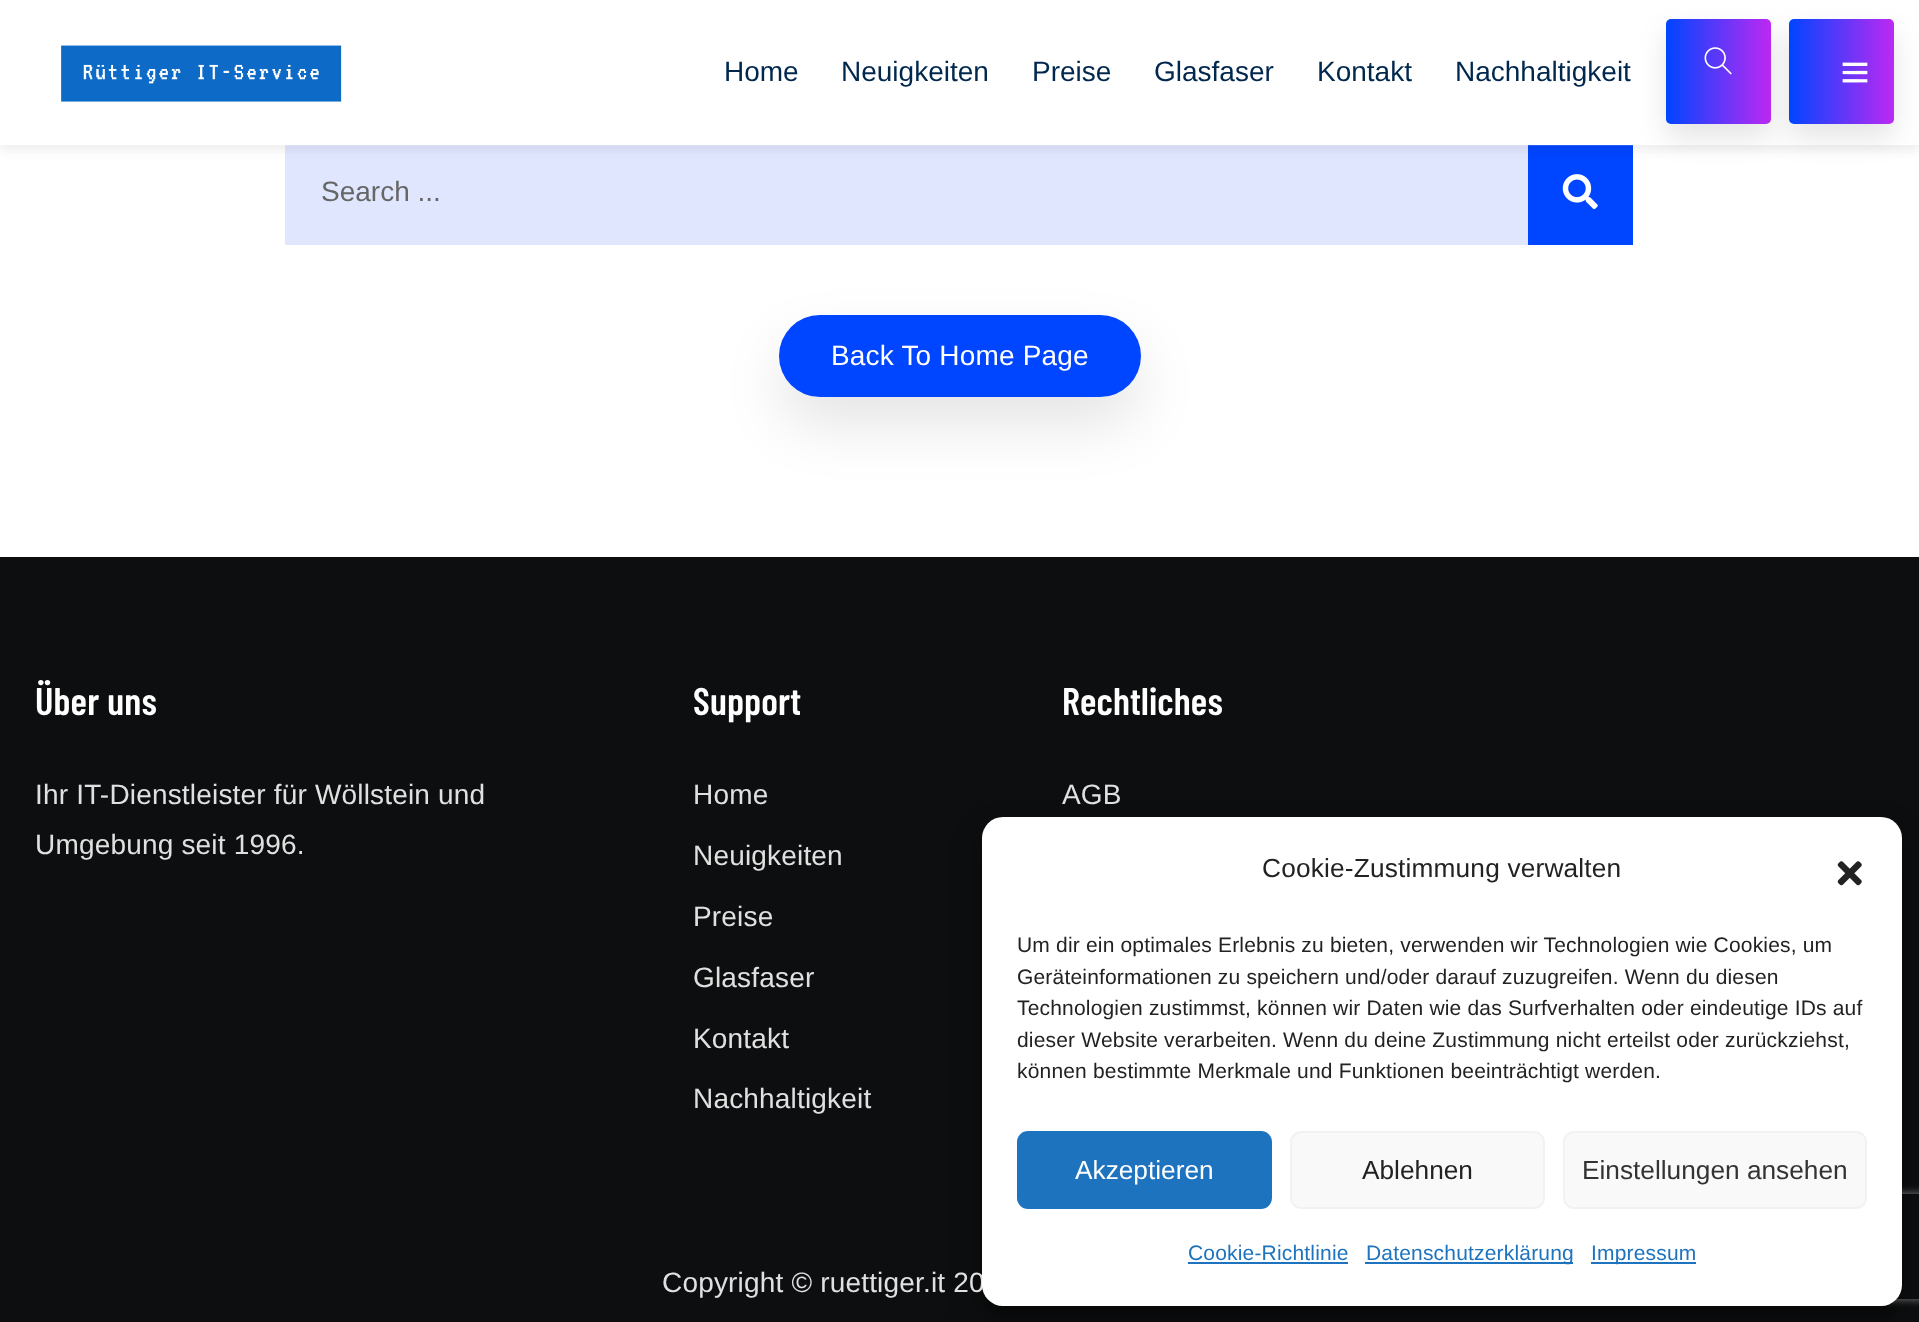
<?xml version="1.0" encoding="UTF-8"?>
<svg xmlns="http://www.w3.org/2000/svg" xmlns:xlink="http://www.w3.org/1999/xlink" width="1919" height="1322">
  <defs>
    <linearGradient id="g1" gradientUnits="userSpaceOnUse" x1="1666" y1="72" x2="1771" y2="72"><stop offset="0" stop-color="#0045ff" /><stop offset="1" stop-color="#bd29f2" /></linearGradient>
    <linearGradient id="g2" gradientUnits="userSpaceOnUse" x1="1789" y1="72" x2="1894" y2="72"><stop offset="0" stop-color="#0045ff" /><stop offset="1" stop-color="#bd29f2" /></linearGradient>
    <clipPath id="clip1"><path d="M 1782 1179 h 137 v 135 h -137 z m 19 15 h 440 c 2 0 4 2 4 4 v 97 c 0 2 -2 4 -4 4 h -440 c -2 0 -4 -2 -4 -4 v -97 c 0 -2 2 -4 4 -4 z" clip-rule="evenodd" /></clipPath>
  </defs>
  <rect width="100%" height="100%" fill="#ffffff" />
  <rect x="285" y="145" width="1243" height="100" fill="#e1e6ff" />
  <rect x="1528" y="145" width="105" height="100" fill="#0045ff" />
  <rect y="5" width="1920" height="146" fill="#000000" fill-opacity="0.06" filter="blur(5px)" />
  <rect width="1919" height="145" fill="#ffffff" />
  <rect x="285" y="145" width="1348" height="1" fill="#ffffff" fill-opacity="0.15" />
  <image x="61" y="45" width="281" height="57" xlink:href="image1.png" />
  <rect x="1666" y="33" width="105" height="105" rx="5" fill="#000000" fill-opacity="0.1" filter="blur(14px)" />
  <rect x="1666" y="19" width="105" height="105" rx="5" fill="url(#g1)" />
  <image x="1704" y="47" width="28" height="28" xlink:href="image2.png" />
  <rect x="1789" y="33" width="105" height="105" rx="5" fill="#000000" fill-opacity="0.1" filter="blur(14px)" />
  <rect x="1789" y="19" width="105" height="105" rx="5" fill="url(#g2)" />
  <image x="1842" y="62" width="26" height="21" xlink:href="image3.png" />
  <image x="1562" y="174" width="36" height="36" xlink:href="image4.png" />
  <rect x="779" y="343" width="362" height="82" rx="41" fill="#000000" fill-opacity="0.1" filter="blur(28px)" />
  <rect x="779" y="315" width="362" height="82" rx="41" fill="#0045ff" />
  <rect y="557" width="1919" height="765" fill="#0d0e0f" />
  <rect x="982" y="828" width="920" height="488" rx="21" fill="#000000" fill-opacity="0.23" filter="blur(5px)" />
  <rect x="982" y="835" width="920" height="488" rx="21" fill="#000000" fill-opacity="0.19" filter="blur(17.5px)" />
  <g clip-path="url(#clip1)">
    <rect x="1797" y="1194" width="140" height="105" rx="4" fill="#808080" filter="blur(4.5px)" />
  </g>
  <text x="724" y="81" style="font-family: Liberation Sans; font-size: 28px; fill: #00274e">Home</text>
  <text x="841" y="81" style="font-family: Liberation Sans; font-size: 28px; fill: #00274e">Neuigkeiten</text>
  <text x="1032" y="81" style="font-family: Liberation Sans; font-size: 28px; fill: #00274e">Preise</text>
  <text x="1154" y="81" style="font-family: Liberation Sans; font-size: 28px; fill: #00274e">Glasfaser</text>
  <text x="1317" y="81" style="font-family: Liberation Sans; font-size: 28px; fill: #00274e">Kontakt</text>
  <text x="1455" y="81" style="font-family: Liberation Sans; font-size: 28px; fill: #00274e">Nachhaltigkeit</text>
  <text x="321" y="201" style="font-family: Liberation Sans; font-size: 28px; fill: #666666">Search ...</text>
  <text x="831" y="365" style="font-family: Liberation Sans; font-size: 28px; letter-spacing: 0.18px; fill: #ffffff">Back To Home Page</text>
  <text x="35" y="715" style="font-family: Barlow Condensed; font-size: 38.5px; font-weight: 600; letter-spacing: 0.18px; fill: #ffffff">Über uns</text>
  <text x="35" y="804" style="font-family: Liberation Sans; font-size: 28px; letter-spacing: 0.18px; fill: #e0e0e0">Ihr IT-Dienstleister für Wöllstein und</text>
  <text x="35" y="854" style="font-family: Liberation Sans; font-size: 28px; letter-spacing: 0.18px; fill: #e0e0e0">Umgebung seit 1996.</text>
  <text x="693" y="715" style="font-family: Barlow Condensed; font-size: 38.5px; font-weight: 600; letter-spacing: 0.18px; fill: #ffffff">Support</text>
  <text x="693" y="804" style="font-family: Liberation Sans; font-size: 28px; letter-spacing: 0.18px; fill: #e0e0e0">Home</text>
  <text x="693" y="865" style="font-family: Liberation Sans; font-size: 28px; letter-spacing: 0.18px; fill: #e0e0e0">Neuigkeiten</text>
  <text x="693" y="926" style="font-family: Liberation Sans; font-size: 28px; letter-spacing: 0.18px; fill: #e0e0e0">Preise</text>
  <text x="693" y="987" style="font-family: Liberation Sans; font-size: 28px; letter-spacing: 0.18px; fill: #e0e0e0">Glasfaser</text>
  <text x="693" y="1048" style="font-family: Liberation Sans; font-size: 28px; letter-spacing: 0.18px; fill: #e0e0e0">Kontakt</text>
  <text x="693" y="1108" style="font-family: Liberation Sans; font-size: 28px; letter-spacing: 0.18px; fill: #e0e0e0">Nachhaltigkeit</text>
  <text x="1062" y="715" style="font-family: Barlow Condensed; font-size: 38.5px; font-weight: 600; letter-spacing: 0.18px; fill: #ffffff">Rechtliches</text>
  <text x="1062" y="804" style="font-family: Liberation Sans; font-size: 28px; letter-spacing: 0.18px; fill: #e0e0e0">AGB</text>
  <text x="662" y="1292" style="font-family: Liberation Sans; font-size: 28px; letter-spacing: 0.18px; fill: #e0e0e0">Copyright © ruettiger.it 20</text>
  <rect x="982" y="817" width="920" height="489" rx="21" fill="#ffffff" />
  <text x="1262" y="877" style="font-family: Liberation Sans; font-size: 26.25px; letter-spacing: 0.18px; fill: #222222">Cookie-Zustimmung verwalten</text>
  <image x="1837" y="861" width="25" height="25" xlink:href="image5.png" />
  <text x="1017" y="952" style="font-family: Liberation Sans; font-size: 21px; letter-spacing: 0.18px; fill: #222222">Um dir ein optimales Erlebnis zu bieten, verwenden wir Technologien wie Cookies, um</text>
  <text x="1017" y="984" style="font-family: Liberation Sans; font-size: 21px; letter-spacing: 0.18px; fill: #222222">Geräteinformationen zu speichern und/oder darauf zuzugreifen. Wenn du diesen</text>
  <text x="1017" y="1015" style="font-family: Liberation Sans; font-size: 21px; letter-spacing: 0.18px; fill: #222222">Technologien zustimmst, können wir Daten wie das Surfverhalten oder eindeutige IDs auf</text>
  <text x="1017" y="1047" style="font-family: Liberation Sans; font-size: 21px; letter-spacing: 0.18px; fill: #222222">dieser Website verarbeiten. Wenn du deine Zustimmung nicht erteilst oder zurückziehst,</text>
  <text x="1017" y="1078" style="font-family: Liberation Sans; font-size: 21px; letter-spacing: 0.18px; fill: #222222">können bestimmte Merkmale und Funktionen beeinträchtigt werden.</text>
  <rect x="1018" y="1132" width="253" height="76" rx="10" fill="#1e73be" stroke="#1e73be" stroke-width="2" />
  <text x="1075" y="1179" style="font-family: Liberation Sans; font-size: 26.25px; fill: #ffffff">Akzeptieren</text>
  <rect x="1291" y="1132" width="253" height="76" rx="10" fill="#f9f9f9" stroke="#f2f2f2" stroke-width="2" />
  <text x="1362" y="1179" style="font-family: Liberation Sans; font-size: 26.25px; fill: #222222">Ablehnen</text>
  <rect x="1564" y="1132" width="302" height="76" rx="10" fill="#f9f9f9" stroke="#f2f2f2" stroke-width="2" />
  <text x="1582" y="1179" style="font-family: Liberation Sans; font-size: 26.25px; fill: #333333">Einstellungen ansehen</text>
  <text x="1188" y="1260" style="font-family: Liberation Sans; font-size: 21px; letter-spacing: 0.18px; fill: #1e73be">Cookie-Richtlinie</text>
  <rect x="1188" y="1262" width="160" height="2" fill="#1e73be" />
  <rect x="1365" y="1262" width="208" height="2" fill="#1e73be" />
  <text x="1366" y="1260" style="font-family: Liberation Sans; font-size: 21px; letter-spacing: 0.18px; fill: #1e73be">Datenschutzerklärung</text>
  <rect x="1591" y="1262" width="105" height="2" fill="#1e73be" />
  <text x="1591" y="1260" style="font-family: Liberation Sans; font-size: 21px; letter-spacing: 0.18px; fill: #1e73be">Impressum</text>
</svg>
